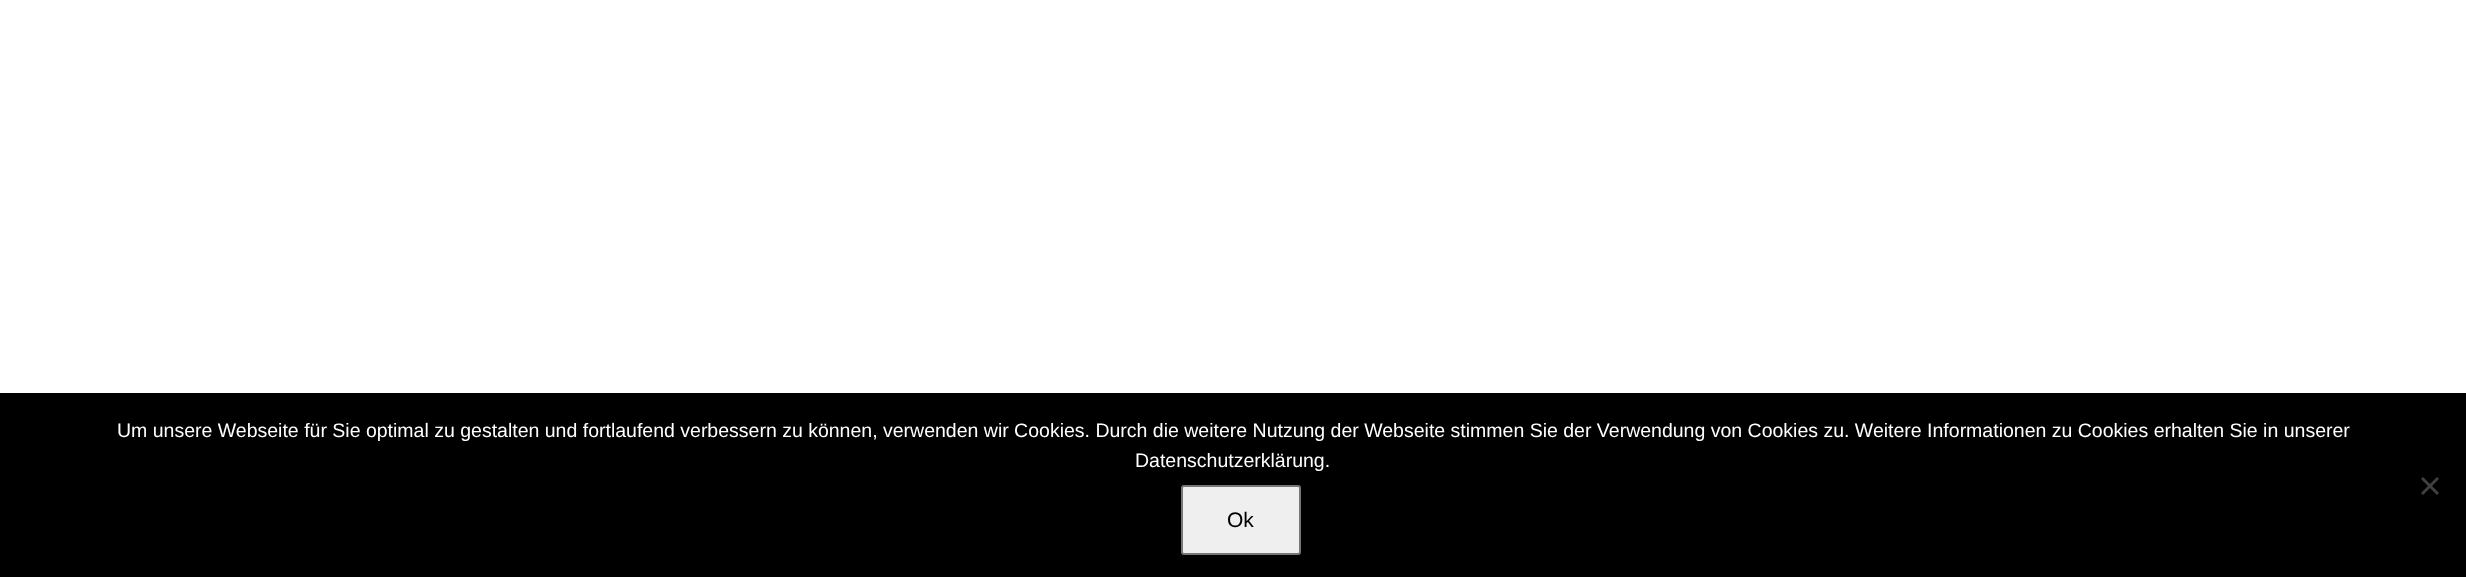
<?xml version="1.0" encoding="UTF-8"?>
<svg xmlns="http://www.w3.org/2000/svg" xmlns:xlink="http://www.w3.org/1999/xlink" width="2466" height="577">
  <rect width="100%" height="100%" fill="#ffffff" />
  <rect y="393" width="2466" height="184" fill="#000000" />
  <path d="M 2437 477 l 2 2 l -16 16 l -2 -2 z" fill="#404040" />
  <path d="M 2421 479 l 2 -2 l 16 16 l -2 2 z" fill="#404040" />
  <rect x="1182" y="486" width="118" height="68" rx="2" fill="#efefef" stroke="#767676" stroke-width="2" />
  <text x="117" y="437" style="font-family: Liberation Sans; font-size: 19.5px; fill: #ffffff">Um unsere Webseite für Sie optimal zu gestalten und fortlaufend verbessern zu können, verwenden wir Cookies. Durch die weitere Nutzung der Webseite stimmen Sie der Verwendung von Cookies zu. Weitere Informationen zu Cookies erhalten Sie in unserer</text>
  <text x="1135" y="467" style="font-family: Liberation Sans; font-size: 19.5px; fill: #ffffff">Datenschutzerklärung.</text>
  <text x="1227" y="527" style="font-family: Liberation Sans; font-size: 21px; fill: #000000">Ok</text>
</svg>
